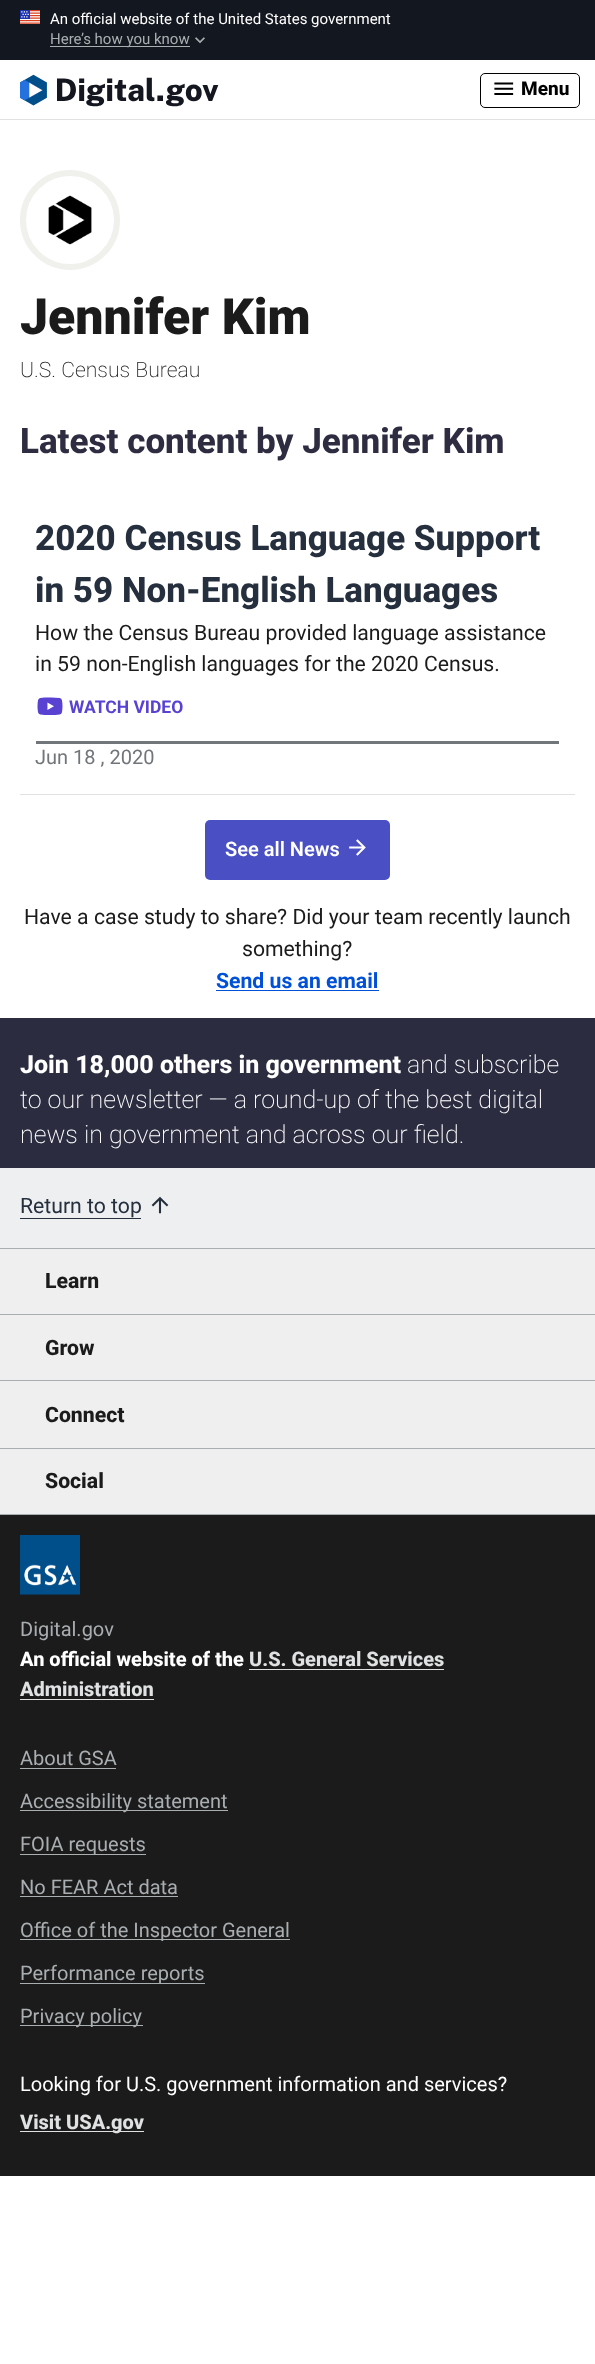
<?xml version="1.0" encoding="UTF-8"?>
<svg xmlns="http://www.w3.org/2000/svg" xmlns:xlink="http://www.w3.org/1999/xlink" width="595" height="2364">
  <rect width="100%" height="100%" fill="#ffffff" />
  <rect width="595" height="60" fill="#13171f" />
  <image x="20" y="10" width="20" height="14" xlink:href="image1.png" />
  <rect x="50" y="46" width="140" height="1" fill="#a9aeb1" />
  <image x="195" y="37" width="10" height="7" xlink:href="image2.png" />
  <rect y="119" width="595" height="1" fill="#dfe1e2" />
  <image x="20" y="74" width="199" height="33" xlink:href="image3.png" />
  <rect x="480.5" y="73.5" width="99" height="34" rx="4.5" fill="none" stroke="#000000" />
  <image x="494" y="82" width="20" height="13" xlink:href="image4.png" />
  <circle cx="70" cy="220" r="47" fill="none" stroke="#f0f0ec" stroke-width="6" />
  <image x="48" y="181" width="44" height="64" xlink:href="image5.png" />
  <rect x="20" y="794" width="555" height="1" fill="#dfe1e2" />
  <image x="37" y="697" width="26" height="18" xlink:href="image6.png" />
  <rect x="36" y="741" width="523" height="3" fill="#71767a" />
  <rect x="205" y="820" width="185" height="60" rx="5" fill="#4a50c4" />
  <image x="349" y="839" width="17" height="17" xlink:href="image7.png" />
  <rect x="216" y="990" width="163" height="1" fill="#0050d8" />
  <rect y="1018" width="595" height="150" fill="#2b2c40" />
  <rect y="1168" width="595" height="80" fill="#edeff0" />
  <rect x="20" y="1218" width="121" height="1" fill="#252f3e" />
  <image x="151" y="1196" width="18" height="18" xlink:href="image8.png" />
  <rect y="1514" width="595" height="1" fill="#a9aeb1" />
  <rect y="1248" width="595" height="1" fill="#a9aeb1" />
  <rect y="1249" width="595" height="65" fill="#efefef" />
  <rect y="1314" width="595" height="1" fill="#a9aeb1" />
  <rect y="1315" width="595" height="65" fill="#efefef" />
  <rect y="1380" width="595" height="1" fill="#a9aeb1" />
  <rect y="1381" width="595" height="67" fill="#efefef" />
  <rect y="1448" width="595" height="1" fill="#a9aeb1" />
  <rect y="1449" width="595" height="65" fill="#efefef" />
  <rect y="1515" width="595" height="661" fill="#1b1b1b" />
  <image x="20" y="1535" width="60" height="60" xlink:href="image9.png" />
  <rect x="249" y="1669" width="195" height="1" fill="#dfe1e2" />
  <rect x="20" y="1699" width="134" height="1" fill="#dfe1e2" />
  <rect x="20" y="1768" width="96" height="1" fill="#a9aeb1" />
  <rect x="20" y="1810" width="208" height="1" fill="#a9aeb1" />
  <rect x="20" y="1854" width="126" height="1" fill="#a9aeb1" />
  <rect x="20" y="1896" width="158" height="1" fill="#a9aeb1" />
  <rect x="20" y="1939" width="270" height="1" fill="#a9aeb1" />
  <rect x="20" y="1983" width="185" height="1" fill="#a9aeb1" />
  <rect x="20" y="2025" width="123" height="1" fill="#a9aeb1" />
  <rect x="20" y="2131" width="124" height="1" fill="#dfe1e2" />
  <text x="50" y="24" style="font-family: Roboto; font-size: 15px; fill: #ffffff">An official website of the United States government</text>
  <text x="50" y="44" style="font-family: Roboto; font-size: 15px; fill: #a9aeb1">Here’s how you know</text>
  <text x="521" y="95" style="font-family: Roboto; font-size: 19px; font-weight: 800; fill: #000000">Menu</text>
  <text x="20" y="334" style="font-family: Roboto; font-size: 50px; font-weight: 900; fill: #1b1b1b">Jennifer Kim</text>
  <text x="20" y="377" style="font-family: Roboto; font-size: 21.2px; font-weight: 200; fill: #1b1b1b">U.S. Census Bureau</text>
  <text x="20" y="453" style="font-family: Roboto; font-size: 35px; font-weight: 800; fill: #2e2c40">Latest content by Jennifer Kim</text>
  <text x="35" y="550" style="font-family: Roboto; font-size: 35px; font-weight: 800; fill: #252f3e">2020 Census Language Support</text>
  <text x="35" y="602" style="font-family: Roboto; font-size: 35px; font-weight: 800; fill: #252f3e">in 59 Non-English Languages</text>
  <text x="35" y="640" style="font-family: Roboto; font-size: 21.2px; fill: #1b1b1b">How the Census Bureau provided language assistance</text>
  <text x="35" y="671" style="font-family: Roboto; font-size: 21.2px; fill: #1b1b1b">in 59 non-English languages for the 2020 Census.</text>
  <text x="69" y="713" style="font-family: Roboto; font-size: 17.5px; font-weight: bold; fill: #5942d2">WATCH VIDEO</text>
  <text x="35" y="764" style="font-family: Roboto; font-size: 20px; fill: #71767a">Jun 18 , 2020</text>
  <text x="225" y="856" style="font-family: Roboto; font-size: 20px; font-weight: 600; fill: #ffffff">See all News</text>
  <text x="24" y="924" style="font-family: Roboto; font-size: 21.2px; fill: #1b1b1b">Have a case study to share? Did your team recently launch</text>
  <text x="242" y="956" style="font-family: Roboto; font-size: 21.2px; fill: #1b1b1b">something?</text>
  <text x="216" y="988" style="font-family: Roboto; font-size: 21.2px; font-weight: bold; fill: #0050d8">Send us an email</text>
  <text x="20" y="1073" style="font-family: Roboto; font-size: 25px; font-weight: 800; fill: #ffffff">Join 18,000 others in government</text>
  <text x="407" y="1073" style="font-family: Roboto; font-size: 25px; font-weight: 200; fill: #ffffff">and subscribe</text>
  <text x="20" y="1108" style="font-family: Roboto; font-size: 25px; font-weight: 200; fill: #ffffff">to our newsletter — a round-up of the best digital</text>
  <text x="20" y="1143" style="font-family: Roboto; font-size: 25px; font-weight: 200; fill: #ffffff">news in government and across our field.</text>
  <text x="20" y="1213" style="font-family: Roboto; font-size: 21.2px; fill: #252f3e">Return to top</text>
  <text x="45" y="1288" style="font-family: Roboto; font-size: 21.2px; font-weight: 800; fill: #1b1b1b">Learn</text>
  <text x="45" y="1355" style="font-family: Roboto; font-size: 21.2px; font-weight: 800; fill: #1b1b1b">Grow</text>
  <text x="45" y="1422" style="font-family: Roboto; font-size: 21.2px; font-weight: 800; fill: #1b1b1b">Connect</text>
  <text x="45" y="1488" style="font-family: Roboto; font-size: 21.2px; font-weight: 800; fill: #1b1b1b">Social</text>
  <text x="20" y="1636" style="font-family: Roboto; font-size: 20px; fill: #a9aeb1">Digital.gov</text>
  <text x="20" y="1666" style="font-family: Roboto; font-size: 20px; font-weight: 800; fill: #ffffff">An official website of the</text>
  <text x="249" y="1666" style="font-family: Roboto; font-size: 20px; font-weight: 800; fill: #dfe1e2">U.S. General Services</text>
  <text x="20" y="1696" style="font-family: Roboto; font-size: 20px; font-weight: 800; fill: #dfe1e2">Administration</text>
  <text x="20" y="1765" style="font-family: Roboto; font-size: 20px; fill: #a9aeb1">About GSA</text>
  <text x="20" y="1808" style="font-family: Roboto; font-size: 20px; fill: #a9aeb1">Accessibility statement</text>
  <text x="20" y="1851" style="font-family: Roboto; font-size: 20px; fill: #a9aeb1">FOIA requests</text>
  <text x="20" y="1894" style="font-family: Roboto; font-size: 20px; fill: #a9aeb1">No FEAR Act data</text>
  <text x="20" y="1937" style="font-family: Roboto; font-size: 20px; fill: #a9aeb1">Office of the Inspector General</text>
  <text x="20" y="1980" style="font-family: Roboto; font-size: 20px; fill: #a9aeb1">Performance reports</text>
  <text x="20" y="2023" style="font-family: Roboto; font-size: 20px; fill: #a9aeb1">Privacy policy</text>
  <text x="20" y="2091" style="font-family: Roboto; font-size: 20px; fill: #ffffff">Looking for U.S. government information and services?</text>
  <text x="20" y="2129" style="font-family: Roboto; font-size: 20px; font-weight: 800; fill: #dfe1e2">Visit USA.gov</text>
</svg>
